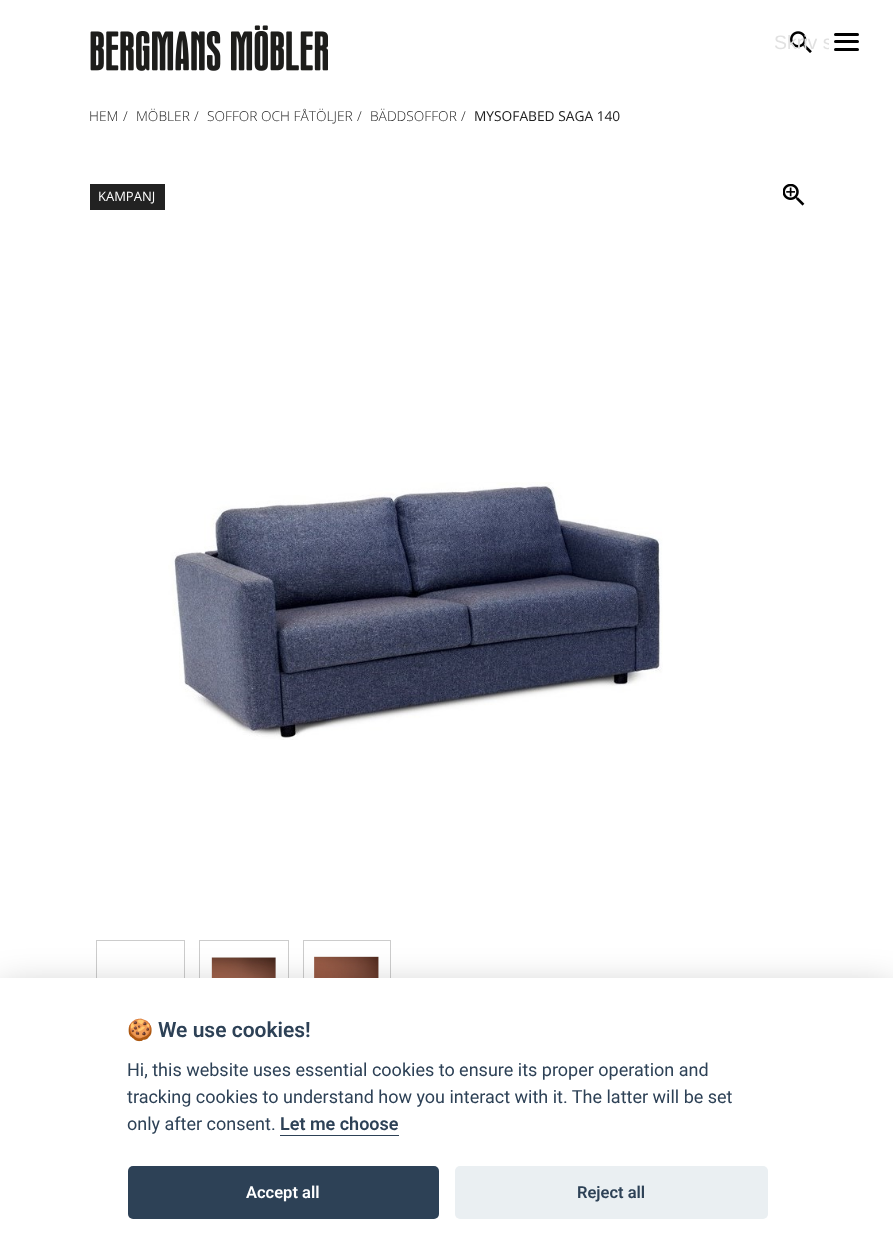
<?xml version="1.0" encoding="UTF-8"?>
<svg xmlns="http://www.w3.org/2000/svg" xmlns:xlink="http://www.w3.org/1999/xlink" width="893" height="1258">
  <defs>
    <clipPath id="clip1"><rect x="774" y="31" width="55" height="23" /></clipPath>
  </defs>
  <rect width="100%" height="100%" fill="#ffffff" />
  <image x="90" y="25" width="238" height="46" xlink:href="image1.png" />
  <image x="790" y="31" width="22" height="22" xlink:href="image2.png" />
  <rect x="834" y="40" width="25" height="3" rx="1.5" fill="#000000" />
  <rect x="834" y="33" width="25" height="3" rx="1.5" fill="#000000" />
  <rect x="834" y="48" width="25" height="3" rx="1.5" fill="#000000" />
  <rect x="90" y="184" width="75" height="26" fill="#222222" />
  <image x="783" y="184" width="22" height="22" xlink:href="image3.png" />
  <image x="168" y="482" width="495" height="258" xlink:href="image4.png" />
  <rect x="96.5" y="940.5" width="88" height="89" fill="none" stroke="#cccccc" />
  <rect x="199.5" y="940.5" width="89" height="89" fill="none" stroke="#cccccc" />
  <image x="211" y="957" width="65" height="21" xlink:href="image5.png" />
  <rect x="303.5" y="940.5" width="87" height="89" fill="none" stroke="#cccccc" />
  <image x="314" y="956" width="65" height="22" xlink:href="image6.png" />
  <rect y="990" width="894" height="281" fill="#020203" fill-opacity="0.28" filter="blur(19px)" />
  <rect y="978" width="893" height="280" fill="#ffffff" />
  <rect x="280" y="1135" width="119" height="1" fill="#2d4156" />
  <rect x="128" y="1166" width="311" height="53" rx="5" fill="#2d4156" />
  <rect x="455" y="1166" width="313" height="53" rx="5" fill="#eaeff2" />
  <g clip-path="url(#clip1)">
    <text x="774" y="49" style="font-family: Liberation Sans; font-size: 19.5px; fill: #e1e1e1">Skriv s</text>
  </g>
  <text x="89" y="121" style="font-family: Open Sans; font-size: 13.75px; font-weight: 300; fill: #212121">HEM</text>
  <text x="123" y="121" style="font-family: Open Sans; font-size: 13.75px; font-weight: 300; fill: #212121">/</text>
  <text x="136" y="121" style="font-family: Open Sans; font-size: 13.75px; font-weight: 300; fill: #212121">MÖBLER</text>
  <text x="194" y="121" style="font-family: Open Sans; font-size: 13.75px; font-weight: 300; fill: #212121">/</text>
  <text x="207" y="121" style="font-family: Open Sans; font-size: 13.75px; font-weight: 300; fill: #212121">SOFFOR OCH FÅTÖLJER</text>
  <text x="357" y="121" style="font-family: Open Sans; font-size: 13.75px; font-weight: 300; fill: #212121">/</text>
  <text x="370" y="121" style="font-family: Open Sans; font-size: 13.75px; font-weight: 300; fill: #212121">BÄDDSOFFOR</text>
  <text x="461" y="121" style="font-family: Open Sans; font-size: 13.75px; font-weight: 300; fill: #212121">/</text>
  <text x="474" y="121" style="font-family: Open Sans; font-size: 13.75px; fill: #212121">MYSOFABED SAGA 140</text>
  <text x="98" y="201" style="font-family: Open Sans; font-size: 13px; fill: #ffffff">KAMPANJ</text>
  <text x="127" y="1037" style="font-family: Noto Color Emoji; font-size: 21px; font-weight: bold; fill: #2d4156">🍪</text>
  <text x="158" y="1037" style="font-family: Roboto; font-size: 21px; font-weight: 600; fill: #2d4156">We use cookies!</text>
  <text x="127" y="1076" style="font-family: Roboto; font-size: 18px; fill: #2d4156">Hi, this website uses essential cookies to ensure its proper operation and</text>
  <text x="127" y="1103" style="font-family: Roboto; font-size: 18px; fill: #2d4156">tracking cookies to understand how you interact with it. The latter will be set</text>
  <text x="127" y="1130" style="font-family: Roboto; font-size: 18px; fill: #2d4156">only after consent.</text>
  <text x="280" y="1130" style="font-family: Roboto; font-size: 18px; font-weight: 600; fill: #2d4156">Let me choose</text>
  <text x="246" y="1198" style="font-family: Roboto; font-size: 16.5px; font-weight: 600; fill: #ffffff">Accept all</text>
  <text x="577" y="1198" style="font-family: Roboto; font-size: 16.5px; font-weight: 600; fill: #2d4156">Reject all</text>
</svg>
